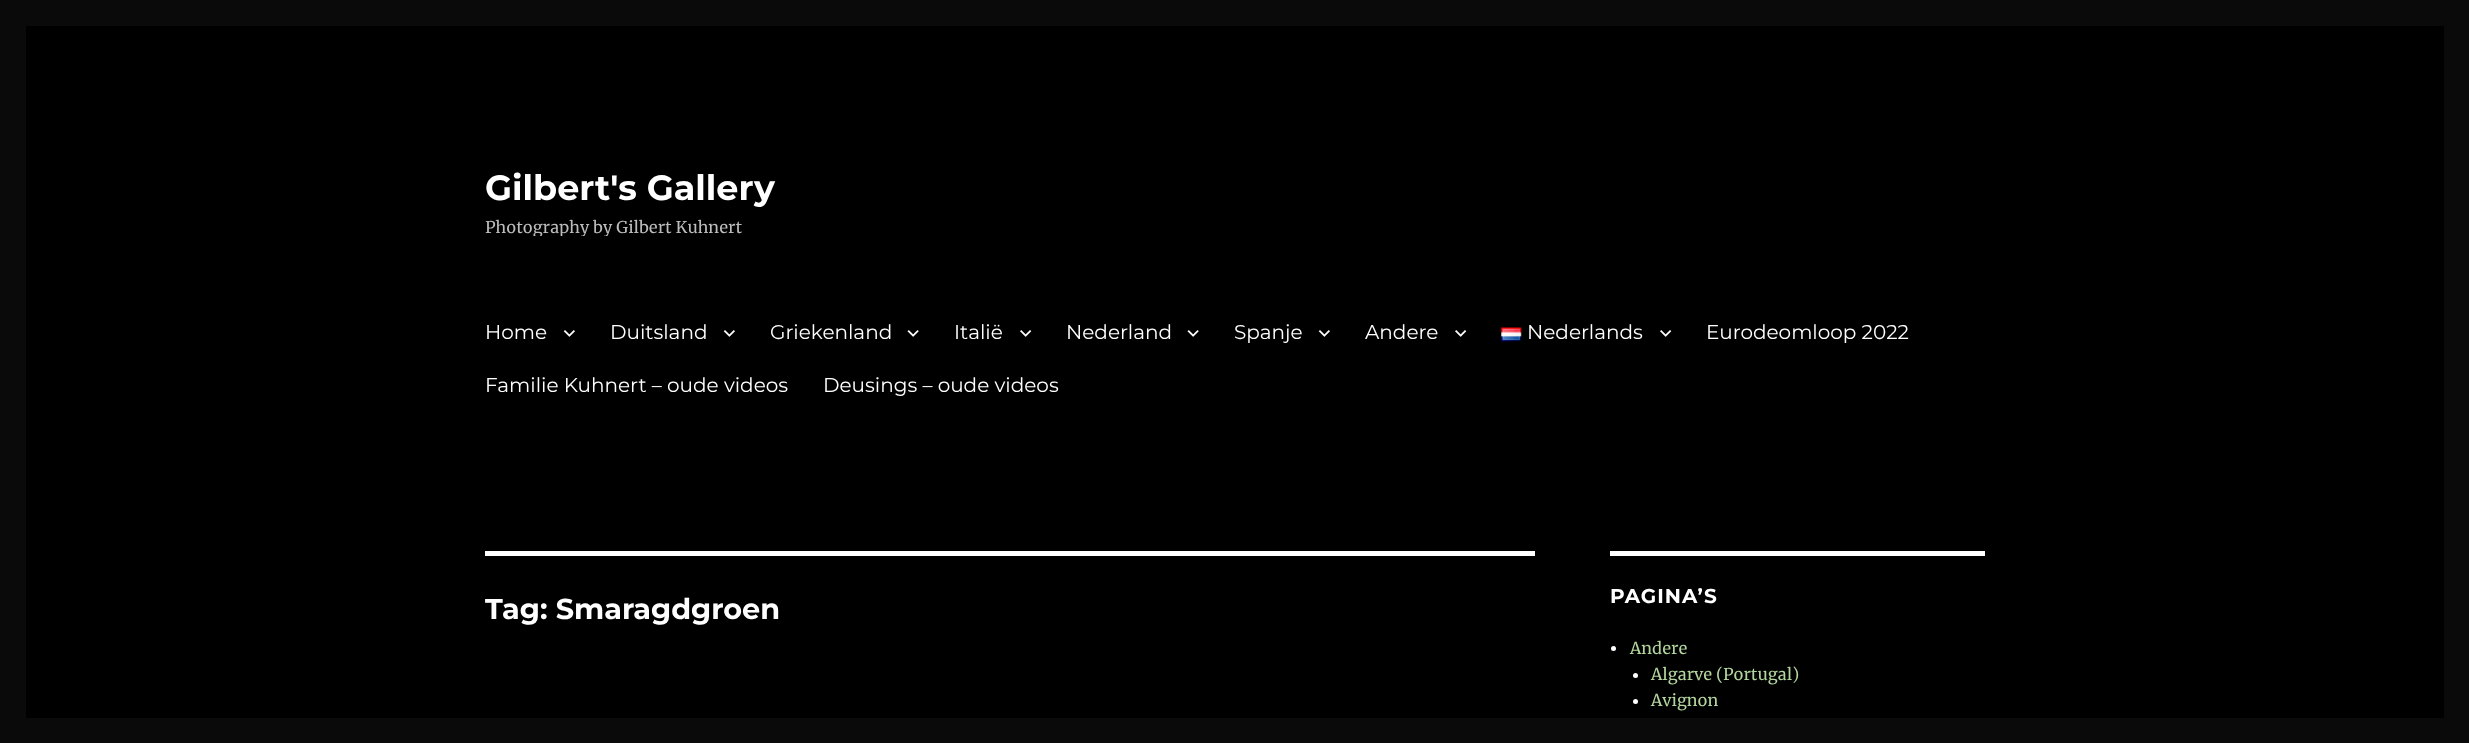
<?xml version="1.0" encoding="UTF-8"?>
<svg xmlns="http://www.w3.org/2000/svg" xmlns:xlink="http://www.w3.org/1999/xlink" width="2469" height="743">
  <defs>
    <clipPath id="clip1"><rect x="485" y="166" width="290" height="70" /></clipPath>
  </defs>
  <rect width="100%" height="100%" fill="#0a0a0a" />
  <rect x="26" y="26" width="2418" height="692" fill="#000000" />
  <image x="563" y="330" width="12" height="7" xlink:href="image1.png" />
  <image x="723" y="330" width="12" height="7" xlink:href="image1.png" />
  <image x="907" y="330" width="12" height="7" xlink:href="image2.png" />
  <image x="1020" y="330" width="12" height="7" xlink:href="image3.png" />
  <image x="1187" y="330" width="12" height="7" xlink:href="image2.png" />
  <image x="1318" y="330" width="12" height="7" xlink:href="image1.png" />
  <image x="1455" y="330" width="12" height="7" xlink:href="image3.png" />
  <image x="1501" y="327" width="21" height="15" xlink:href="image4.png" />
  <image x="1660" y="330" width="12" height="7" xlink:href="image3.png" />
  <rect x="485" y="551" width="1050" height="5" fill="#ffffff" />
  <rect x="1610" y="551" width="375" height="5" fill="#ffffff" />
  <circle cx="1613.5" cy="648.5" r="2.5" fill="#ffffff" />
  <circle cx="1635.5" cy="675.5" r="2.5" fill="#ffffff" />
  <circle cx="1635.5" cy="701.5" r="2.5" fill="#ffffff" />
  <text x="485" y="200" style="font-family: Montserrat; font-size: 35px; font-weight: 100; fill: #ffffff">Gilbert's Gallery</text>
  <g clip-path="url(#clip1)">
    <text x="485" y="233" style="font-family: Merriweather; font-size: 16.25px; fill: #bcbcbc">Photography by Gilbert Kuhnert</text>
  </g>
  <text x="485" y="339" style="font-family: 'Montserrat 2'; font-size: 20px; font-weight: 100; fill: #ffffff">Home</text>
  <text x="610" y="339" style="font-family: 'Montserrat 2'; font-size: 20px; font-weight: 100; fill: #ffffff">Duitsland</text>
  <text x="770" y="339" style="font-family: 'Montserrat 2'; font-size: 20px; font-weight: 100; fill: #ffffff">Griekenland</text>
  <text x="954" y="339" style="font-family: 'Montserrat 2'; font-size: 20px; font-weight: 100; fill: #ffffff">Italië</text>
  <text x="1066" y="339" style="font-family: 'Montserrat 2'; font-size: 20px; font-weight: 100; fill: #ffffff">Nederland</text>
  <text x="1234" y="339" style="font-family: 'Montserrat 2'; font-size: 20px; font-weight: 100; fill: #ffffff">Spanje</text>
  <text x="1365" y="339" style="font-family: 'Montserrat 2'; font-size: 20px; font-weight: 100; fill: #ffffff">Andere</text>
  <text x="1527" y="339" style="font-family: 'Montserrat 2'; font-size: 20px; font-weight: 100; fill: #ffffff">Nederlands</text>
  <text x="1706" y="339" style="font-family: 'Montserrat 2'; font-size: 20px; font-weight: 100; fill: #ffffff">Eurodeomloop 2022</text>
  <text x="485" y="392" style="font-family: 'Montserrat 2'; font-size: 20px; font-weight: 100; fill: #ffffff">Familie Kuhnert – oude videos</text>
  <text x="823" y="392" style="font-family: 'Montserrat 2'; font-size: 20px; font-weight: 100; fill: #ffffff">Deusings – oude videos</text>
  <text x="485" y="619" style="font-family: Montserrat; font-size: 28.75px; font-weight: 100; fill: #ffffff">Tag: Smaragdgroen</text>
  <text x="1610" y="603" style="font-family: Montserrat; font-size: 20px; font-weight: 100; letter-spacing: 1px; fill: #ffffff">PAGINA’S</text>
  <text x="1630" y="654" style="font-family: Merriweather; font-size: 16.25px; fill: #b3d69e">Andere</text>
  <text x="1651" y="680" style="font-family: Merriweather; font-size: 16.25px; fill: #b3d69e">Algarve (Portugal)</text>
  <text x="1651" y="706" style="font-family: Merriweather; font-size: 16.25px; fill: #b3d69e">Avignon</text>
</svg>
